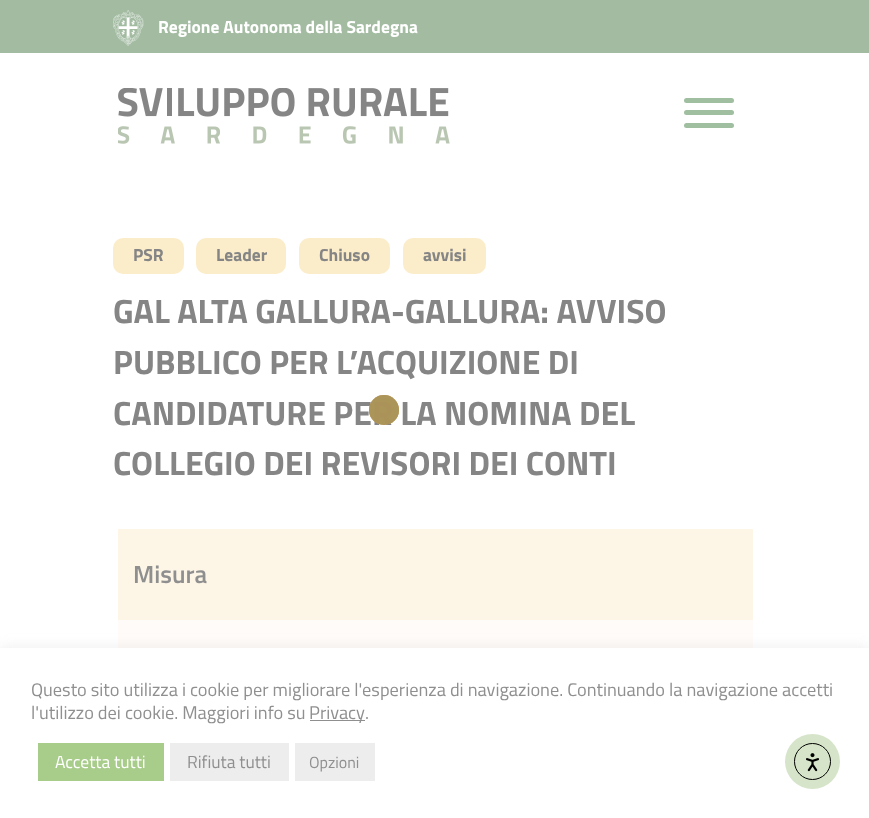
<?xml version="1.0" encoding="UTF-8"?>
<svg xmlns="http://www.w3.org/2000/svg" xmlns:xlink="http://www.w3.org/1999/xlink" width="869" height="818">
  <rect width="100%" height="100%" fill="#ffffff" />
  <rect width="869" height="53" fill="#a2bba1" />
  <image x="113" y="10" width="31" height="36" xlink:href="image1.png" />
  <image x="118" y="88" width="332" height="56" xlink:href="image2.png" />
  <rect x="684" y="110" width="50" height="5" rx="2.5" fill="#a0bfa0" />
  <rect x="684" y="98" width="50" height="5" rx="2.5" fill="#a0bfa0" />
  <rect x="684" y="123" width="50" height="5" rx="2.5" fill="#a0bfa0" />
  <rect x="113" y="238" width="71" height="36" rx="10" fill="#fcedca" />
  <rect x="196" y="238" width="90" height="36" rx="10" fill="#fcedca" />
  <rect x="299" y="238" width="91" height="36" rx="10" fill="#fcedca" />
  <rect x="403" y="238" width="83" height="36" rx="10" fill="#fcedca" />
  <rect x="118" y="529" width="635" height="91" fill="#fdf6e7" />
  <rect x="118" y="620" width="635" height="28" fill="#fefbf8" />
  <rect y="646" width="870" height="172" fill="#d1d1d1" fill-opacity="0.3" filter="blur(6px)" />
  <rect y="648" width="869" height="170" fill="#ffffff" />
  <rect x="310" y="720" width="55" height="1" fill="#8f8f8f" />
  <rect x="38" y="743" width="126" height="38" fill="#a8cc89" />
  <rect x="170" y="743" width="119" height="38" fill="#ededee" />
  <rect x="295" y="743" width="80" height="38" fill="#ededee" />
  <circle cx="812.5" cy="761.5" r="27.5" fill="#d6e5ca" />
  <circle cx="812.5" cy="761.5" r="18" fill="none" stroke="#000000" />
  <image x="806" y="753" width="13" height="19" xlink:href="image3.png" />
  <text x="158" y="33" style="font-family: Titillium Web; font-size: 17.5px; font-weight: bold; fill: #ffffff">Regione Autonoma della Sardegna</text>
  <text x="133" y="261" style="font-family: Titillium Web; font-size: 17.5px; font-weight: bold; fill: #858585">PSR</text>
  <text x="216" y="261" style="font-family: Titillium Web; font-size: 17.5px; font-weight: bold; fill: #858585">Leader</text>
  <text x="319" y="261" style="font-family: Titillium Web; font-size: 17.5px; font-weight: bold; fill: #858585">Chiuso</text>
  <text x="423" y="261" style="font-family: Titillium Web; font-size: 17.5px; font-weight: bold; fill: #858585">avvisi</text>
  <text x="113" y="323" style="font-family: Titillium Web; font-size: 33.75px; font-weight: bold; fill: #858585">GAL ALTA GALLURA-GALLURA: AVVISO</text>
  <text x="113" y="374" style="font-family: Titillium Web; font-size: 33.75px; font-weight: bold; fill: #858585">PUBBLICO PER L’ACQUIZIONE DI</text>
  <text x="113" y="425" style="font-family: Titillium Web; font-size: 33.75px; font-weight: bold; fill: #858585">CANDIDATURE PER LA NOMINA DEL</text>
  <text x="113" y="475" style="font-family: Titillium Web; font-size: 33.75px; font-weight: bold; fill: #858585">COLLEGIO DEI REVISORI DEI CONTI</text>
  <text x="133" y="583" style="font-family: Titillium Web; font-size: 25px; font-weight: 600; fill: #8f8f8f">Misura</text>
  <text x="31" y="696" style="font-family: Titillium Web; font-size: 18.35px; fill: #8f8f8f">Questo sito utilizza i cookie per migliorare l'esperienza di navigazione. Continuando la navigazione accetti</text>
  <text x="31" y="719" style="font-family: Titillium Web; font-size: 18.35px; fill: #8f8f8f">l'utilizzo dei cookie. Maggiori info su</text>
  <text x="309" y="719" style="font-family: Titillium Web; font-size: 18.35px; fill: #8f8f8f">Privacy</text>
  <text x="365" y="719" style="font-family: Titillium Web; font-size: 18.35px; fill: #8f8f8f">.</text>
  <text x="55" y="768" style="font-family: Titillium Web; font-size: 17.5px; fill: #ffffff">Accetta tutti</text>
  <text x="187" y="768" style="font-family: Titillium Web; font-size: 17.5px; fill: #8f8f8f">Rifiuta tutti</text>
  <text x="309" y="768" style="font-family: Titillium Web; font-size: 16px; fill: #8f8f8f">Opzioni</text>
  <circle cx="384" cy="410" r="15" fill="#7d934d" fill-opacity="0.56" />
  <circle cx="384" cy="410" r="15" fill="#abbd81" fill-opacity="0.56" />
  <circle cx="384" cy="410" r="15" fill="#f8b26a" fill-opacity="0.56" />
  <circle cx="384" cy="410" r="15" fill="#f47e60" fill-opacity="0.56" />
  <circle cx="384" cy="410" r="15" fill="#7d934d" fill-opacity="0.56" />
</svg>
